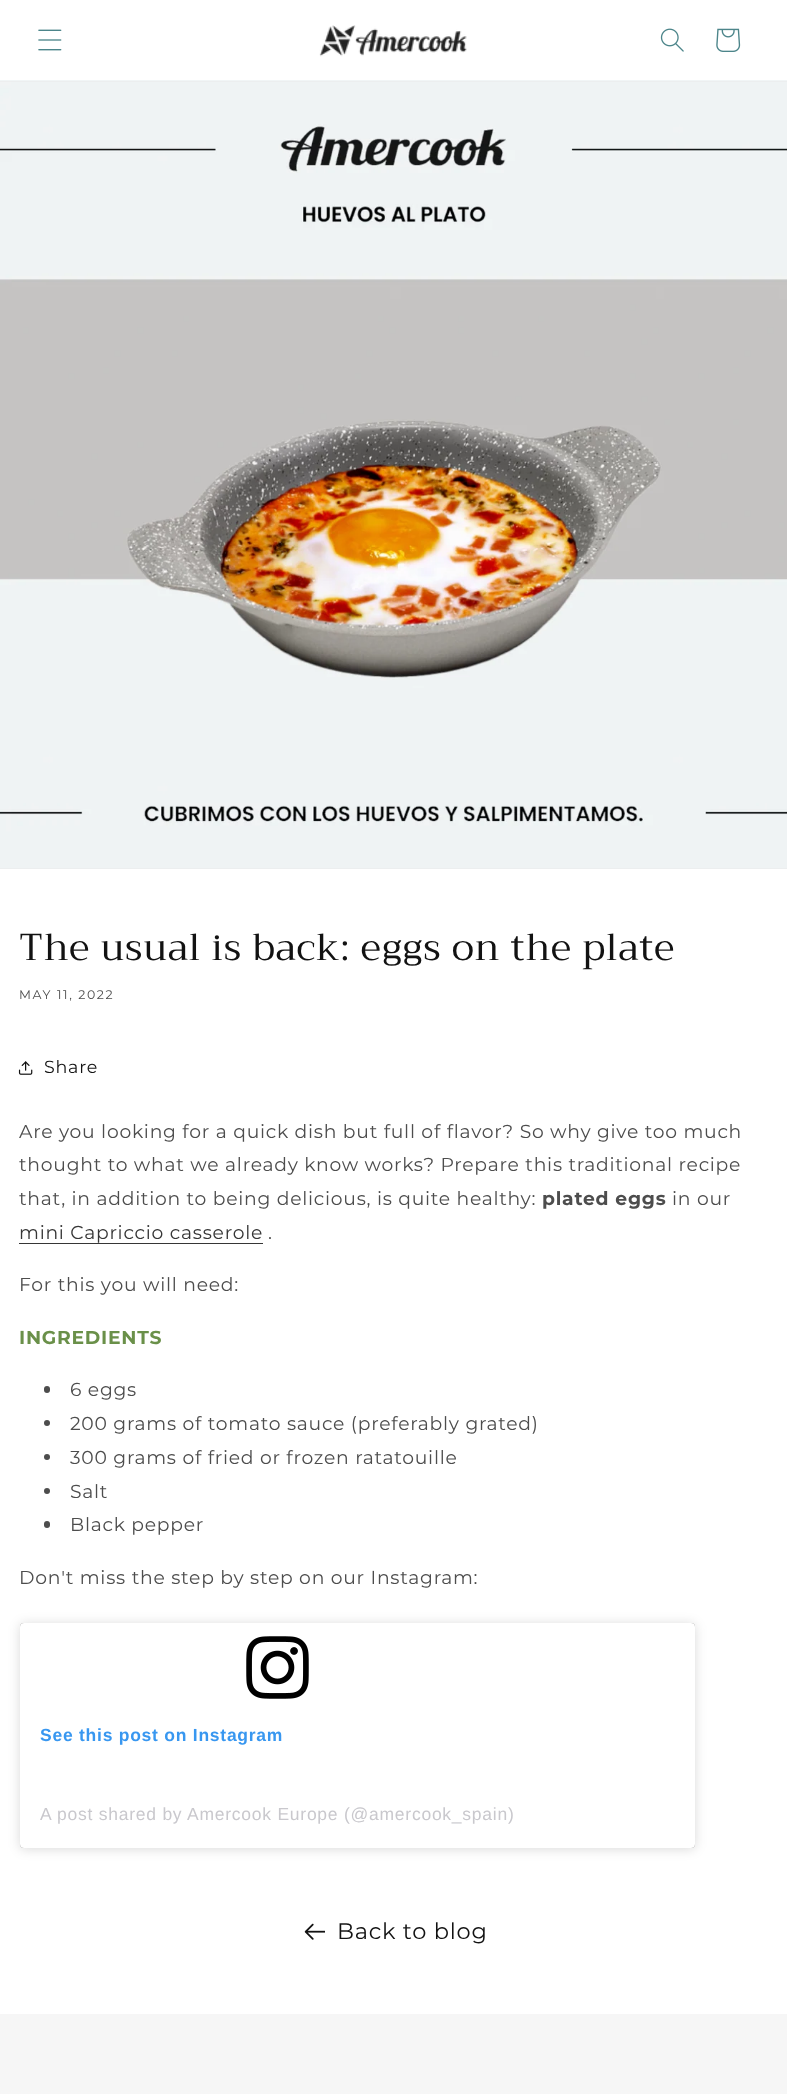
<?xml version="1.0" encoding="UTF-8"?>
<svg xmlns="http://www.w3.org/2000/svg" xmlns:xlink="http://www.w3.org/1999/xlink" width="787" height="2094">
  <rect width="100%" height="100%" fill="#ffffff" />
  <rect y="80" width="787" height="1" fill="#f1f5f6" />
  <image x="38" y="29" width="24" height="22" xlink:href="image1.png" />
  <image x="319" y="25" width="148" height="32" xlink:href="image2.png" />
  <image x="660" y="28" width="24" height="24" xlink:href="image3.png" />
  <image x="716" y="28" width="25" height="24" xlink:href="image4.png" />
  <rect y="81" width="787" height="788" fill="#e8e8e8" />
  <image x="0" y="81" width="787" height="788" xlink:href="image5.png" />
  <image x="18" y="1061" width="15" height="14" xlink:href="image6.png" />
  <rect x="19" y="1243" width="244" height="1" fill="#363636" />
  <rect x="44" y="1386" width="6" height="7" rx="3" fill="#4d4d4d" />
  <circle cx="47" cy="1423" r="3" fill="#4d4d4d" />
  <circle cx="47" cy="1457" r="3" fill="#4d4d4d" />
  <circle cx="47" cy="1491" r="3" fill="#4d4d4d" />
  <rect x="44" y="1521" width="6" height="7" rx="3" fill="#4d4d4d" />
  <rect x="20" y="1624" width="675" height="225" rx="4" fill="#000000" fill-opacity="0.15" filter="blur(6px)" />
  <rect x="20" y="1623" width="675" height="225" rx="4" fill="#000000" fill-opacity="0.5" filter="blur(0.5px)" />
  <rect x="20" y="1623" width="675" height="225" rx="4" fill="#ffffff" />
  <image x="246" y="1636" width="63" height="63" xlink:href="image7.png" />
  <image x="304" y="1923" width="21" height="17" xlink:href="image8.png" />
  <rect y="2014" width="787" height="80" fill="#f6f6f6" />
  <text x="19" y="960" style="font-family: Trirong; font-size: 37.5px; letter-spacing: 0.75px; fill: #121212">The usual is back: eggs on the plate</text>
  <text x="19" y="999" style="font-family: Montserrat; font-size: 12.5px; letter-spacing: 1.6px; fill: #4d4d4d">MAY 11, 2022</text>
  <text x="44" y="1073" style="font-family: Montserrat; font-size: 17.5px; letter-spacing: 0.75px; fill: #121212">Share</text>
  <text x="19" y="1138" style="font-family: Montserrat; font-size: 18.75px; letter-spacing: 0.75px; fill: #4d4d4d">Are you looking for a quick dish but full of flavor? So why give too much</text>
  <text x="19" y="1171" style="font-family: Montserrat; font-size: 18.75px; letter-spacing: 0.75px; fill: #4d4d4d">thought to what we already know works? Prepare this traditional recipe</text>
  <text x="19" y="1205" style="font-family: Montserrat; font-size: 18.75px; letter-spacing: 0.75px; fill: #4d4d4d">that, in addition to being delicious, is quite healthy:</text>
  <text x="542" y="1205" style="font-family: Montserrat; font-size: 18.75px; font-weight: bold; letter-spacing: 0.75px; fill: #4d4d4d">plated eggs</text>
  <text x="672" y="1205" style="font-family: Montserrat; font-size: 18.75px; letter-spacing: 0.75px; fill: #4d4d4d">in our</text>
  <text x="19" y="1239" style="font-family: Montserrat; font-size: 18.75px; letter-spacing: 0.75px; fill: #363636">mini Capriccio casserole</text>
  <text x="268" y="1239" style="font-family: Montserrat; font-size: 18.75px; letter-spacing: 0.75px; fill: #4d4d4d">.</text>
  <text x="19" y="1291" style="font-family: Montserrat; font-size: 18.75px; letter-spacing: 0.75px; fill: #4d4d4d">For this you will need:</text>
  <text x="19" y="1344" style="font-family: Montserrat; font-size: 18.75px; font-weight: bold; letter-spacing: 0.75px; fill: #6a9049">INGREDIENTS</text>
  <text x="70" y="1396" style="font-family: Montserrat; font-size: 18.75px; letter-spacing: 0.75px; fill: #4d4d4d">6 eggs</text>
  <text x="70" y="1430" style="font-family: Montserrat; font-size: 18.75px; letter-spacing: 0.75px; fill: #4d4d4d">200 grams of tomato sauce (preferably grated)</text>
  <text x="70" y="1464" style="font-family: Montserrat; font-size: 18.75px; letter-spacing: 0.75px; fill: #4d4d4d">300 grams of fried or frozen ratatouille</text>
  <text x="70" y="1498" style="font-family: Montserrat; font-size: 18.75px; letter-spacing: 0.75px; fill: #4d4d4d">Salt</text>
  <text x="70" y="1531" style="font-family: Montserrat; font-size: 18.75px; letter-spacing: 0.75px; fill: #4d4d4d">Black pepper</text>
  <text x="19" y="1584" style="font-family: Montserrat; font-size: 18.75px; letter-spacing: 0.75px; fill: #4d4d4d">Don't miss the step by step on our Instagram:</text>
  <text x="40" y="1741" style="font-family: Liberation Sans; font-size: 17.5px; font-weight: bold; letter-spacing: 0.75px; fill: #3897f0">See this post on Instagram</text>
  <text x="40" y="1820" style="font-family: Liberation Sans; font-size: 17.5px; letter-spacing: 0.75px; fill: #c9c8cd">A post shared by Amercook Europe (@amercook_spain)</text>
  <text x="337" y="1939" style="font-family: Montserrat; font-size: 22.5px; letter-spacing: 0.75px; fill: #121212">Back to blog</text>
</svg>
